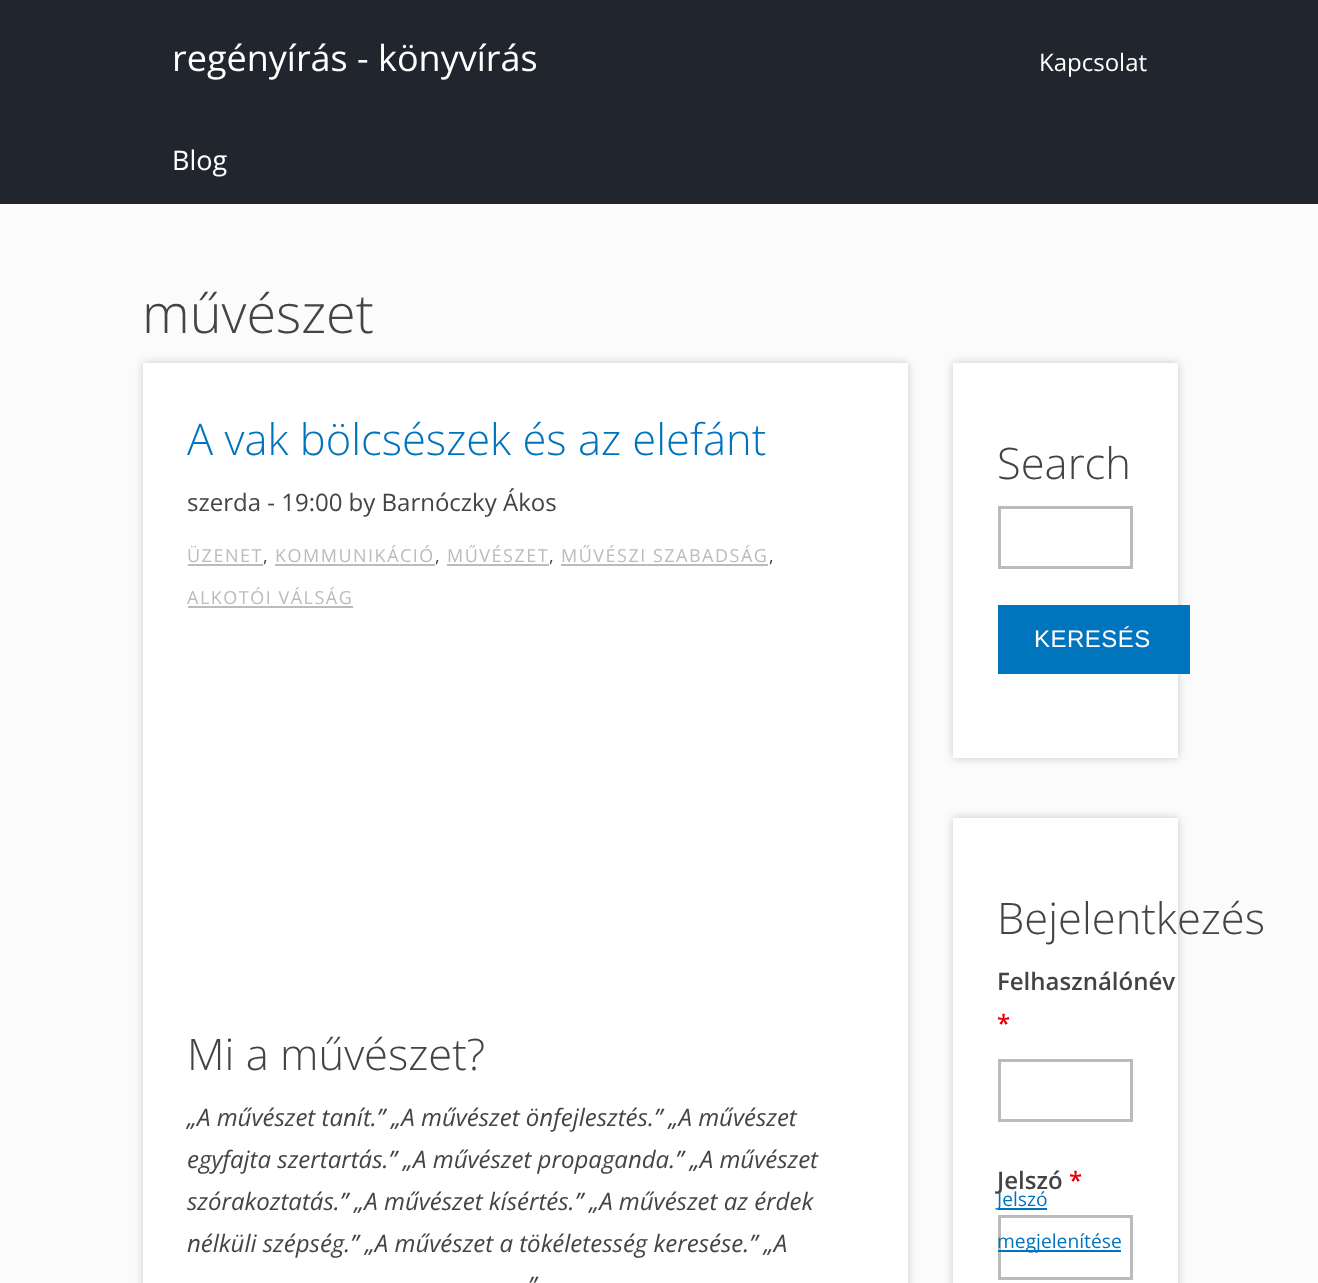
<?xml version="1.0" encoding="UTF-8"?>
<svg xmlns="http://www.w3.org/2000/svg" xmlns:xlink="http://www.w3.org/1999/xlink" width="1318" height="1283">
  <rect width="100%" height="100%" fill="#fbfbfb" />
  <rect width="1318" height="204" fill="#20252e" />
  <rect x="143" y="363" width="765" height="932" fill="#000000" fill-opacity="0.2" filter="blur(4px)" />
  <rect x="143" y="363" width="765" height="920" fill="#ffffff" />
  <rect x="188" y="564" width="75" height="2" fill="#bbbbbb" />
  <rect x="275" y="564" width="160" height="2" fill="#bbbbbb" />
  <rect x="447" y="564" width="102" height="2" fill="#bbbbbb" />
  <rect x="561" y="564" width="207" height="2" fill="#bbbbbb" />
  <rect x="188" y="606" width="165" height="2" fill="#bbbbbb" />
  <rect x="953" y="363" width="225" height="395" fill="#000000" fill-opacity="0.2" filter="blur(4px)" />
  <rect x="953" y="363" width="225" height="395" fill="#ffffff" />
  <rect x="999.5" y="507.5" width="132" height="60" fill="none" stroke="#bbbbbb" stroke-width="3" />
  <rect x="998" y="605" width="192" height="69" fill="#0074bd" />
  <rect x="953" y="818" width="225" height="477" fill="#000000" fill-opacity="0.2" filter="blur(4px)" />
  <rect x="953" y="818" width="225" height="465" fill="#ffffff" />
  <rect x="999.5" y="1060.5" width="132" height="60" fill="none" stroke="#bbbbbb" stroke-width="3" />
  <rect x="998" y="1208" width="49" height="2" fill="#0073bd" />
  <rect x="999.5" y="1216.5" width="132" height="62" fill="none" stroke="#bbbbbb" stroke-width="3" />
  <rect x="998" y="1250" width="123" height="2" fill="#0073bd" />
  <text x="172" y="71" style="font-family: Open Sans; font-size: 36px; fill: #fffffe">regényírás - könyvírás</text>
  <text x="1039" y="71" style="font-family: Open Sans; font-size: 24px; fill: #fffffe">Kapcsolat</text>
  <text x="172" y="170" style="font-family: Open Sans; font-size: 27px; fill: #fffffe">Blog</text>
  <text x="142" y="333" style="font-family: Open Sans; font-size: 54px; font-weight: 300; fill: #444444">művészet</text>
  <text x="187" y="455" style="font-family: Open Sans; font-size: 43.5px; font-weight: 300; fill: #0073bd">A vak bölcsészek és az elefánt</text>
  <text x="187" y="511" style="font-family: Open Sans; font-size: 24px; fill: #444444">szerda - 19:00 by Barnóczky Ákos</text>
  <text x="187" y="562" style="font-family: Open Sans; font-size: 18px; letter-spacing: 1.5px; fill: #bbbbbb">ÜZENET</text>
  <text x="263" y="562" style="font-family: Open Sans; font-size: 18px; letter-spacing: 1.5px; fill: #444444">,</text>
  <text x="275" y="562" style="font-family: Open Sans; font-size: 18px; letter-spacing: 1.5px; fill: #bbbbbb">KOMMUNIKÁCIÓ</text>
  <text x="435" y="562" style="font-family: Open Sans; font-size: 18px; letter-spacing: 1.5px; fill: #444444">,</text>
  <text x="447" y="562" style="font-family: Open Sans; font-size: 18px; letter-spacing: 1.5px; fill: #bbbbbb">MŰVÉSZET</text>
  <text x="549" y="562" style="font-family: Open Sans; font-size: 18px; letter-spacing: 1.5px; fill: #444444">,</text>
  <text x="561" y="562" style="font-family: Open Sans; font-size: 18px; letter-spacing: 1.5px; fill: #bbbbbb">MŰVÉSZI SZABADSÁG</text>
  <text x="769" y="562" style="font-family: Open Sans; font-size: 18px; letter-spacing: 1.5px; fill: #444444">,</text>
  <text x="187" y="604" style="font-family: Open Sans; font-size: 18px; letter-spacing: 1.5px; fill: #bbbbbb">ALKOTÓI VÁLSÁG</text>
  <text x="187" y="1070" style="font-family: Open Sans; font-size: 43.5px; font-weight: 300; fill: #444444">Mi a művészet?</text>
  <text x="187" y="1126" style="font-family: Open Sans; font-size: 24px; font-style: italic; fill: #444444">„A művészet tanít.” „A művészet önfejlesztés.” „A művészet</text>
  <text x="187" y="1168" style="font-family: Open Sans; font-size: 24px; font-style: italic; fill: #444444">egyfajta szertartás.” „A művészet propaganda.” „A művészet</text>
  <text x="187" y="1210" style="font-family: Open Sans; font-size: 24px; font-style: italic; fill: #444444">szórakoztatás.” „A művészet kísértés.” „A művészet az érdek</text>
  <text x="187" y="1252" style="font-family: Open Sans; font-size: 24px; font-style: italic; fill: #444444">nélküli szépség.” „A művészet a tökéletesség keresése.” „A</text>
  <text x="528" y="1294" style="font-family: Open Sans; font-size: 24px; font-style: italic; fill: #444444">”</text>
  <text x="997" y="479" style="font-family: Open Sans; font-size: 43.5px; font-weight: 300; fill: #444444">Search</text>
  <text x="1034" y="647" style="font-family: Liberation Sans; font-size: 24px; letter-spacing: 0.5px; fill: #fffffe">KERESÉS</text>
  <text x="997" y="934" style="font-family: Open Sans; font-size: 43.5px; font-weight: 300; fill: #444444">Bejelentkezés</text>
  <text x="997" y="990" style="font-family: Open Sans; font-size: 24px; font-weight: 600; fill: #444444">Felhasználónév</text>
  <text x="997" y="1032" style="font-family: Open Sans; font-size: 24px; font-weight: 600; fill: #e60000">*</text>
  <text x="997" y="1189" style="font-family: Open Sans; font-size: 24px; font-weight: 600; fill: #444444">Jelszó</text>
  <text x="1069" y="1189" style="font-family: Open Sans; font-size: 24px; font-weight: 600; fill: #e60000">*</text>
  <text x="997" y="1206" style="font-family: Open Sans; font-size: 19.25px; fill: #0073bd">Jelszó</text>
  <text x="997" y="1248" style="font-family: Open Sans; font-size: 19.25px; fill: #0073bd">megjelenítése</text>
</svg>
